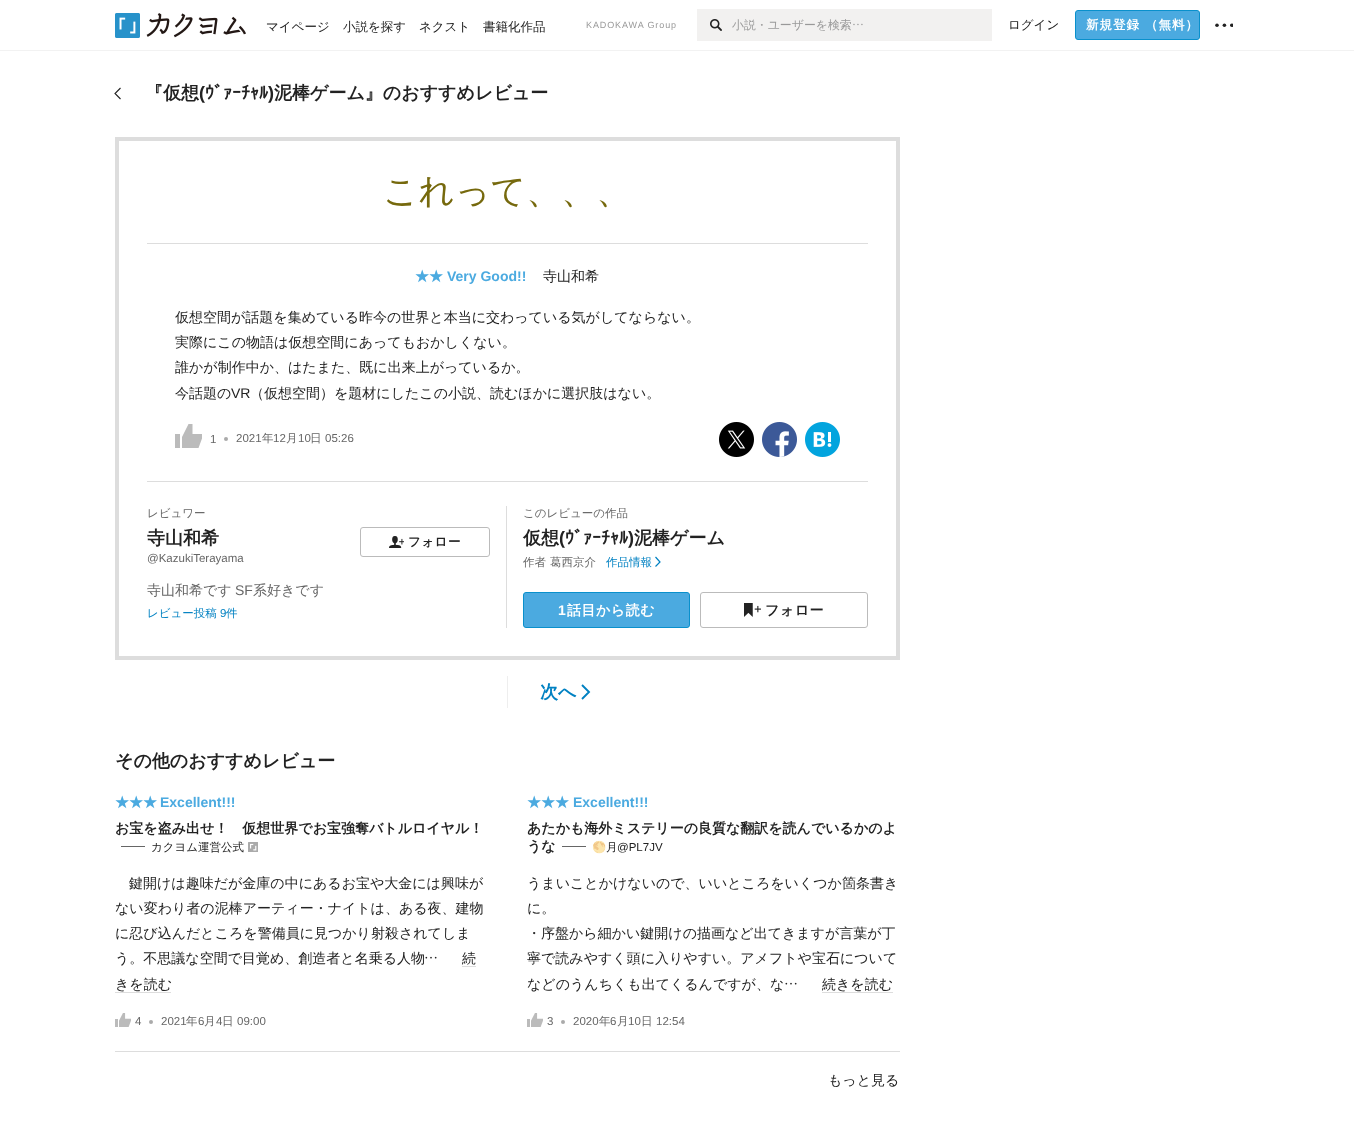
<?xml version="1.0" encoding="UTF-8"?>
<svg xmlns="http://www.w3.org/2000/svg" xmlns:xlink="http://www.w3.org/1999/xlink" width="1354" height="1134">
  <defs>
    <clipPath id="clip1"><rect x="1215" y="16" width="18" height="18" /></clipPath>
    <clipPath id="clip2"><rect x="175" y="424" width="27" height="24" /></clipPath>
  </defs>
  <rect width="100%" height="100%" fill="#ffffff" />
  <rect y="50" width="1354" height="1" fill="#f2f2f2" />
  <image x="115" y="13" width="131" height="25" xlink:href="image1.png" />
  <rect x="697" y="9" width="295" height="32" fill="#f2f1f0" />
  <image x="710" y="19" width="12" height="12" xlink:href="image2.png" />
  <image x="853" y="23" width="10" height="3" xlink:href="image3.png" />
  <rect x="1075.5" y="10.5" width="124" height="29" rx="2.5" fill="#4baae0" stroke="#0990cc" />
  <circle cx="1217" cy="25.2" r="1.8" fill="#222222" />
  <circle cx="1224.4" cy="25.2" r="1.8" fill="#222222" />
  <g clip-path="url(#clip1)">
    <circle cx="1231.8" cy="25.2" r="1.8" fill="#222222" />
  </g>
  <path d="M 120.5 99 l -5.5 -5.5 l 5.5 -5.5" fill="none" stroke="#222222" stroke-width="1.1" />
  <rect x="117" y="139" width="781" height="519" fill="none" stroke="#dddddd" stroke-width="4" />
  <rect x="147" y="243" width="721" height="1" fill="#dddddd" />
  <rect x="147" y="481" width="721" height="1" fill="#dddddd" />
  <rect x="175" y="434" width="5" height="14" fill="#bbbbbb" />
  <g clip-path="url(#clip2)">
    <path d="M 202.5 437 v -3 h -10 v -10 h -4 l -6.5 13 v 11 h 16.5 z" fill="#bbbbbb" />
  </g>
  <circle cx="226" cy="439" r="2" fill="#aaaaaa" />
  <image x="719" y="422" width="35" height="35" xlink:href="image4.png" />
  <image x="762" y="422" width="35" height="35" xlink:href="image5.png" />
  <image x="805" y="422" width="35" height="35" xlink:href="image6.png" />
  <rect x="506" y="506" width="1" height="122" fill="#dddddd" />
  <rect x="360.5" y="527.5" width="129" height="29" rx="2.5" fill="none" stroke="#bbbbbb" />
  <image x="389" y="536" width="15" height="12" xlink:href="image7.png" />
  <path d="M 655.5 557 l 4.5 5 l -4.5 4.5" fill="none" stroke="#0081c2" stroke-width="1.2" />
  <rect x="523.5" y="592.5" width="166" height="35" rx="2.5" fill="#4baae0" stroke="#0990cc" />
  <rect x="700.5" y="592.5" width="167" height="35" rx="2.5" fill="none" stroke="#bbbbbb" />
  <image x="744" y="603" width="17" height="14" xlink:href="image8.png" />
  <rect x="507" y="676" width="1" height="32" fill="#eeeeee" />
  <path d="M 582 685 l 7 7 l -7 7" fill="none" stroke="#0081c2" stroke-width="1.9" />
  <rect x="115" y="1051" width="785" height="1" fill="#dddddd" />
  <rect x="121" y="846" width="24" height="1" fill="#666666" />
  <image x="248" y="842" width="10" height="10" xlink:href="image9.png" />
  <image x="425" y="956" width="12" height="3" xlink:href="image10.png" />
  <rect x="462" y="966" width="14" height="1" fill="#dddddd" />
  <rect x="115" y="992" width="56" height="1" fill="#dddddd" />
  <image x="115" y="1013" width="16" height="14" xlink:href="image11.png" />
  <circle cx="151" cy="1022" r="2" fill="#aaaaaa" />
  <rect x="562" y="846" width="24" height="1" fill="#666666" />
  <image x="785" y="982" width="12" height="3" xlink:href="image10.png" />
  <rect x="822" y="992" width="71" height="1" fill="#dddddd" />
  <image x="527" y="1013" width="16" height="14" xlink:href="image11.png" />
  <circle cx="563" cy="1022" r="2" fill="#aaaaaa" />
  <text x="266" y="31" style="font-family: WenQuanYi Zen Hei; font-size: 12.5px; font-weight: 500; fill: #222222">マイページ</text>
  <text x="343" y="31" style="font-family: WenQuanYi Zen Hei; font-size: 12.5px; font-weight: 500; fill: #222222">小説を探す</text>
  <text x="419" y="31" style="font-family: WenQuanYi Zen Hei; font-size: 12.5px; font-weight: 500; fill: #222222">ネクスト</text>
  <text x="483" y="31" style="font-family: WenQuanYi Zen Hei; font-size: 12.5px; font-weight: 500; fill: #222222">書籍化作品</text>
  <text x="586" y="28" style="font-family: Liberation Sans; font-size: 9px; letter-spacing: 0.9px; fill: #999999">KADOKAWA Group</text>
  <text x="732" y="29" style="font-family: WenQuanYi Zen Hei; font-size: 11.9px; font-weight: 500; fill: #999999">小説・ユーザーを検索</text>
  <text x="1008" y="29" style="font-family: WenQuanYi Zen Hei; font-size: 12.5px; font-weight: 500; fill: #222222">ログイン</text>
  <text x="1086" y="29" style="font-family: WenQuanYi Zen Hei; font-size: 12.5px; font-weight: bold; letter-spacing: 1px; fill: #ffffff">新規登録</text>
  <text x="1145" y="29" style="font-family: WenQuanYi Zen Hei; font-size: 12.5px; font-weight: bold; letter-spacing: 1px; fill: #ffffff">（無料）</text>
  <text x="145" y="99" style="font-family: WenQuanYi Zen Hei; font-size: 18px; font-weight: bold; fill: #222222">『仮想</text>
  <text x="199" y="99" style="font-family: Liberation Sans; font-size: 18px; font-weight: bold; fill: #222222">(</text>
  <text x="205" y="99" style="font-family: IPAPGothic; font-size: 18px; font-weight: bold; fill: #222222">ｳﾞｧｰﾁｬﾙ</text>
  <text x="268" y="99" style="font-family: Liberation Sans; font-size: 18px; font-weight: bold; fill: #222222">)</text>
  <text x="274" y="99" style="font-family: WenQuanYi Zen Hei; font-size: 18px; font-weight: bold; fill: #222222">泥棒ゲーム』のおすすめレビュー</text>
  <text x="383" y="203" style="font-family: WenQuanYi Zen Hei; font-size: 35px; font-weight: 500; fill: #76690d">これって、、、</text>
  <text x="415" y="281" style="font-family: WenQuanYi Zen Hei; font-size: 14px; font-weight: bold; fill: #4baae0">★★</text>
  <text x="447" y="281" style="font-family: Liberation Sans; font-size: 14px; font-weight: bold; fill: #4baae0">Very Good!!</text>
  <text x="543" y="281" style="font-family: WenQuanYi Zen Hei; font-size: 14px; font-weight: 500; fill: #222222">寺山和希</text>
  <text x="175" y="322" style="font-family: WenQuanYi Zen Hei; font-size: 14px; font-weight: 500; fill: #222222">仮想空間が話題を集めている昨今の世界と本当に交わっている気がしてならない。</text>
  <text x="175" y="347" style="font-family: WenQuanYi Zen Hei; font-size: 14px; font-weight: 500; fill: #222222">実際にこの物語は仮想空間にあってもおかしくない。</text>
  <text x="175" y="372" style="font-family: WenQuanYi Zen Hei; font-size: 14px; font-weight: 500; fill: #222222">誰かが制作中か、はたまた、既に出来上がっているか。</text>
  <text x="175" y="398" style="font-family: WenQuanYi Zen Hei; font-size: 14px; font-weight: 500; fill: #222222">今話題の</text>
  <text x="231" y="398" style="font-family: Liberation Sans; font-size: 14px; fill: #222222">VR</text>
  <text x="250" y="398" style="font-family: WenQuanYi Zen Hei; font-size: 14px; font-weight: 500; fill: #222222">（仮想空間）を題材にしたこの小説、読むほかに選択肢はない。</text>
  <text x="210" y="443" style="font-family: Liberation Sans; font-size: 11.5px; fill: #666666">1</text>
  <text x="236" y="442" style="font-family: Liberation Sans; font-size: 11.5px; fill: #666666">2021</text>
  <text x="262" y="442" style="font-family: WenQuanYi Zen Hei; font-size: 11.5px; font-weight: 500; fill: #666666">年</text>
  <text x="273" y="442" style="font-family: Liberation Sans; font-size: 11.5px; fill: #666666">12</text>
  <text x="286" y="442" style="font-family: WenQuanYi Zen Hei; font-size: 11.5px; font-weight: 500; fill: #666666">月</text>
  <text x="298" y="442" style="font-family: Liberation Sans; font-size: 11.5px; fill: #666666">10</text>
  <text x="310" y="442" style="font-family: WenQuanYi Zen Hei; font-size: 11.5px; font-weight: 500; fill: #666666">日</text>
  <text x="325" y="442" style="font-family: Liberation Sans; font-size: 11.5px; fill: #666666">05:26</text>
  <text x="147" y="517" style="font-family: WenQuanYi Zen Hei; font-size: 11.5px; font-weight: 500; fill: #666666">レビュワー</text>
  <text x="147" y="544" style="font-family: WenQuanYi Zen Hei; font-size: 18px; font-weight: bold; fill: #222222">寺山和希</text>
  <text x="147" y="562" style="font-family: Liberation Sans; font-size: 11.5px; fill: #666666">@KazukiTerayama</text>
  <text x="408" y="546" style="font-family: WenQuanYi Zen Hei; font-size: 12.5px; font-weight: bold; letter-spacing: 0.5px; fill: #222222">フォロー</text>
  <text x="147" y="595" style="font-family: WenQuanYi Zen Hei; font-size: 14px; font-weight: 500; fill: #666666">寺山和希です</text>
  <text x="235" y="595" style="font-family: Liberation Sans; font-size: 14px; fill: #666666">SF</text>
  <text x="253" y="595" style="font-family: WenQuanYi Zen Hei; font-size: 14px; font-weight: 500; fill: #666666">系好きです</text>
  <text x="147" y="617" style="font-family: WenQuanYi Zen Hei; font-size: 11.5px; font-weight: 500; fill: #0081c2">レビュー投稿</text>
  <text x="220" y="617" style="font-family: Liberation Sans; font-size: 11.5px; fill: #0081c2">9</text>
  <text x="226" y="617" style="font-family: WenQuanYi Zen Hei; font-size: 11.5px; font-weight: 500; fill: #0081c2">件</text>
  <text x="523" y="517" style="font-family: WenQuanYi Zen Hei; font-size: 11.5px; font-weight: 500; fill: #666666">このレビューの作品</text>
  <text x="523" y="544" style="font-family: WenQuanYi Zen Hei; font-size: 18px; font-weight: bold; fill: #222222">仮想</text>
  <text x="559" y="544" style="font-family: Liberation Sans; font-size: 18px; font-weight: bold; fill: #222222">(</text>
  <text x="565" y="544" style="font-family: IPAPGothic; font-size: 18px; font-weight: bold; fill: #222222">ｳﾞｧｰﾁｬﾙ</text>
  <text x="628" y="544" style="font-family: Liberation Sans; font-size: 18px; font-weight: bold; fill: #222222">)</text>
  <text x="634" y="544" style="font-family: WenQuanYi Zen Hei; font-size: 18px; font-weight: bold; fill: #222222">泥棒ゲーム</text>
  <text x="523" y="566" style="font-family: WenQuanYi Zen Hei; font-size: 11.5px; font-weight: 500; fill: #666666">作者</text>
  <text x="550" y="566" style="font-family: WenQuanYi Zen Hei; font-size: 11.5px; font-weight: 500; fill: #666666">葛西京介</text>
  <text x="606" y="566" style="font-family: WenQuanYi Zen Hei; font-size: 11.5px; font-weight: 500; fill: #0081c2">作品情報</text>
  <text x="558" y="615" style="font-family: Liberation Sans; font-size: 14px; font-weight: bold; letter-spacing: 0.5px; fill: #ffffff">1</text>
  <text x="567" y="615" style="font-family: WenQuanYi Zen Hei; font-size: 14px; font-weight: bold; letter-spacing: 0.5px; fill: #ffffff">話目から読む</text>
  <text x="765" y="615" style="font-family: WenQuanYi Zen Hei; font-size: 14px; font-weight: bold; letter-spacing: 0.5px; fill: #222222">フォロー</text>
  <text x="540" y="698" style="font-family: WenQuanYi Zen Hei; font-size: 18px; font-weight: bold; fill: #0081c2">次へ</text>
  <text x="115" y="767" style="font-family: WenQuanYi Zen Hei; font-size: 18px; font-weight: bold; fill: #222222">その他のおすすめレビュー</text>
  <text x="115" y="807" style="font-family: WenQuanYi Zen Hei; font-size: 14px; font-weight: bold; fill: #4baae0">★★★</text>
  <text x="160" y="807" style="font-family: Liberation Sans; font-size: 14px; font-weight: bold; fill: #4baae0">Excellent!!!</text>
  <text x="115" y="833" style="font-family: WenQuanYi Zen Hei; font-size: 14px; font-weight: bold; fill: #222222">お宝を盗み出せ！　仮想世界でお宝強奪バトルロイヤル！</text>
  <text x="151" y="851" style="font-family: WenQuanYi Zen Hei; font-size: 11.5px; font-weight: 500; fill: #222222">カクヨム運営公式</text>
  <text x="129" y="888" style="font-family: WenQuanYi Zen Hei; font-size: 14px; font-weight: 500; fill: #222222">鍵開けは趣味だが金庫の中にあるお宝や大金には興味が</text>
  <text x="115" y="913" style="font-family: WenQuanYi Zen Hei; font-size: 14px; font-weight: 500; fill: #222222">ない変わり者の泥棒アーティー・ナイトは、ある夜、建物</text>
  <text x="115" y="938" style="font-family: WenQuanYi Zen Hei; font-size: 14px; font-weight: 500; fill: #222222">に忍び込んだところを警備員に見つかり射殺されてしま</text>
  <text x="115" y="963" style="font-family: WenQuanYi Zen Hei; font-size: 14px; font-weight: 500; fill: #222222">う。不思議な空間で目覚め、創造者と名乗る人物</text>
  <text x="462" y="963" style="font-family: WenQuanYi Zen Hei; font-size: 14px; font-weight: 500; fill: #222222">続</text>
  <text x="115" y="989" style="font-family: WenQuanYi Zen Hei; font-size: 14px; font-weight: 500; fill: #222222">きを読む</text>
  <text x="135" y="1025" style="font-family: Liberation Sans; font-size: 11.5px; fill: #666666">4</text>
  <text x="161" y="1025" style="font-family: Liberation Sans; font-size: 11.5px; fill: #666666">2021</text>
  <text x="186" y="1025" style="font-family: WenQuanYi Zen Hei; font-size: 11.5px; font-weight: 500; fill: #666666">年</text>
  <text x="198" y="1025" style="font-family: Liberation Sans; font-size: 11.5px; fill: #666666">6</text>
  <text x="204" y="1025" style="font-family: WenQuanYi Zen Hei; font-size: 11.5px; font-weight: 500; fill: #666666">月</text>
  <text x="216" y="1025" style="font-family: Liberation Sans; font-size: 11.5px; fill: #666666">4</text>
  <text x="222" y="1025" style="font-family: WenQuanYi Zen Hei; font-size: 11.5px; font-weight: 500; fill: #666666">日</text>
  <text x="237" y="1025" style="font-family: Liberation Sans; font-size: 11.5px; fill: #666666">09:00</text>
  <text x="527" y="807" style="font-family: WenQuanYi Zen Hei; font-size: 14px; font-weight: bold; fill: #4baae0">★★★</text>
  <text x="573" y="807" style="font-family: Liberation Sans; font-size: 14px; font-weight: bold; fill: #4baae0">Excellent!!!</text>
  <text x="527" y="833" style="font-family: WenQuanYi Zen Hei; font-size: 14px; font-weight: bold; fill: #222222">あたかも海外ミステリーの良質な翻訳を読んでいるかのよ</text>
  <text x="527" y="851" style="font-family: WenQuanYi Zen Hei; font-size: 14px; font-weight: bold; fill: #222222">うな</text>
  <text x="592" y="851" style="font-family: Noto Color Emoji; font-size: 11.5px; fill: #222222">🌕️</text>
  <text x="606" y="851" style="font-family: WenQuanYi Zen Hei; font-size: 11.5px; font-weight: 500; fill: #222222">月</text>
  <text x="617" y="851" style="font-family: Liberation Sans; font-size: 11.5px; fill: #222222">@PL7JV</text>
  <text x="527" y="888" style="font-family: WenQuanYi Zen Hei; font-size: 14px; font-weight: 500; fill: #222222">うまいことかけないので、いいところをいくつか箇条書き</text>
  <text x="527" y="913" style="font-family: WenQuanYi Zen Hei; font-size: 14px; font-weight: 500; fill: #222222">に。</text>
  <text x="527" y="938" style="font-family: WenQuanYi Zen Hei; font-size: 14px; font-weight: 500; fill: #222222">・序盤から細かい鍵開けの描画など出てきますが言葉が丁</text>
  <text x="527" y="963" style="font-family: WenQuanYi Zen Hei; font-size: 14px; font-weight: 500; fill: #222222">寧で読みやすく頭に入りやすい。アメフトや宝石について</text>
  <text x="527" y="989" style="font-family: WenQuanYi Zen Hei; font-size: 14px; font-weight: 500; fill: #222222">などのうんちくも出てくるんですが、な</text>
  <text x="822" y="989" style="font-family: WenQuanYi Zen Hei; font-size: 14px; font-weight: 500; fill: #222222">続きを読む</text>
  <text x="547" y="1025" style="font-family: Liberation Sans; font-size: 11.5px; fill: #666666">3</text>
  <text x="573" y="1025" style="font-family: Liberation Sans; font-size: 11.5px; fill: #666666">2020</text>
  <text x="599" y="1025" style="font-family: WenQuanYi Zen Hei; font-size: 11.5px; font-weight: 500; fill: #666666">年</text>
  <text x="610" y="1025" style="font-family: Liberation Sans; font-size: 11.5px; fill: #666666">6</text>
  <text x="617" y="1025" style="font-family: WenQuanYi Zen Hei; font-size: 11.5px; font-weight: 500; fill: #666666">月</text>
  <text x="628" y="1025" style="font-family: Liberation Sans; font-size: 11.5px; fill: #666666">10</text>
  <text x="641" y="1025" style="font-family: WenQuanYi Zen Hei; font-size: 11.5px; font-weight: 500; fill: #666666">日</text>
  <text x="656" y="1025" style="font-family: Liberation Sans; font-size: 11.5px; fill: #666666">12:54</text>
  <text x="828" y="1085" style="font-family: WenQuanYi Zen Hei; font-size: 14px; font-weight: 500; fill: #222222">もっと見る</text>
</svg>
